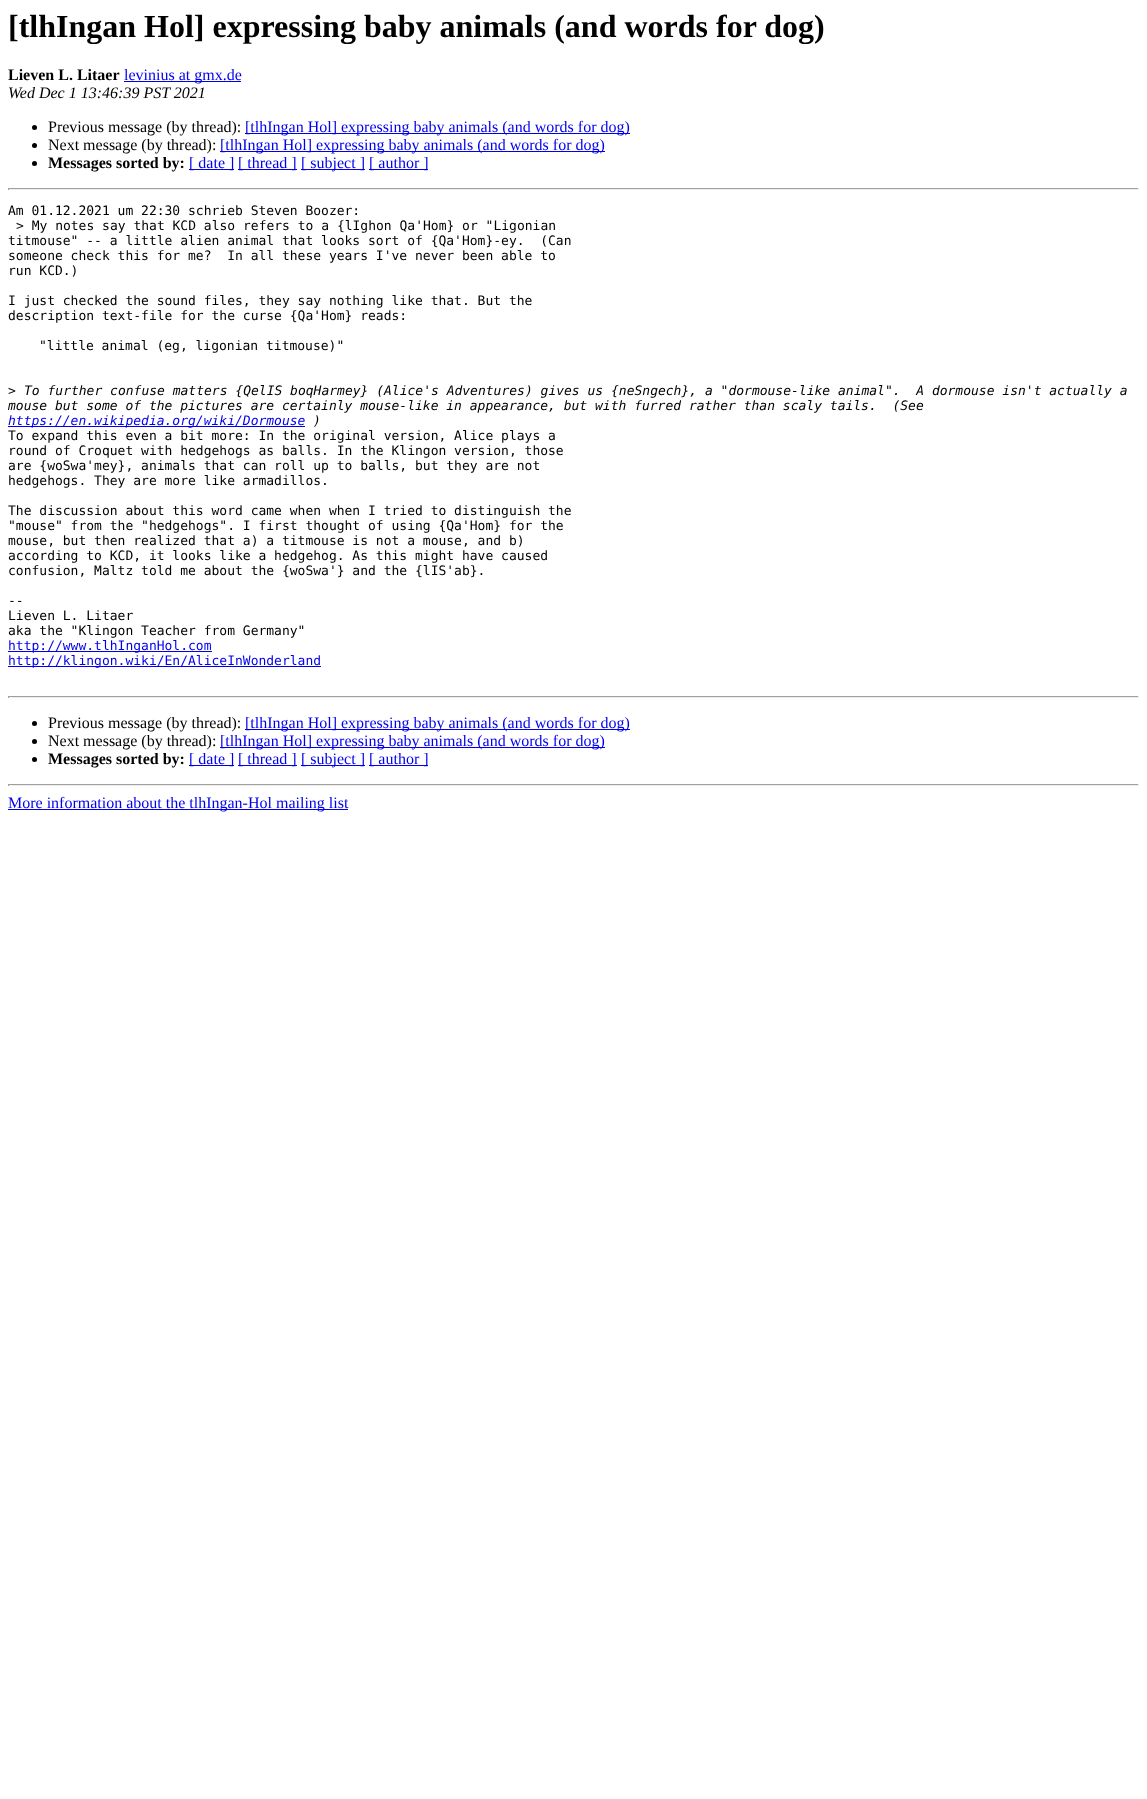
<?xml version="1.0" encoding="UTF-8"?>
<svg xmlns="http://www.w3.org/2000/svg" xmlns:xlink="http://www.w3.org/1999/xlink" width="1147" height="1799">
  <rect width="100%" height="100%" fill="#ffffff" />
  <rect x="124" y="81" width="117" height="1" fill="#0000ee" />
  <circle cx="34.5" cy="127.5" r="2.5" fill="#000000" />
  <rect x="245" y="133" width="385" height="1" fill="#0000ee" />
  <circle cx="34.5" cy="145.5" r="2.5" fill="#000000" />
  <rect x="220" y="151" width="385" height="1" fill="#0000ee" />
  <circle cx="34.5" cy="163.5" r="2.5" fill="#000000" />
  <rect x="189" y="169" width="45" height="1" fill="#0000ee" />
  <rect x="238" y="169" width="59" height="1" fill="#0000ee" />
  <rect x="301" y="169" width="64" height="1" fill="#0000ee" />
  <rect x="369" y="169" width="59" height="1" fill="#0000ee" />
  <rect x="8" y="188" width="1131" height="1" fill="#9f9f9f" />
  <rect x="1138" y="188" width="1" height="2" fill="#eeeeee" />
  <rect x="8" y="189" width="1131" height="1" fill="#eeeeee" />
  <rect x="8" y="188" width="1" height="2" fill="#9f9f9f" />
  <rect x="8" y="426" width="297" height="1" fill="#0000ee" />
  <rect x="8" y="651" width="204" height="1" fill="#0000ee" />
  <rect x="8" y="666" width="313" height="1" fill="#0000ee" />
  <rect x="8" y="696" width="1131" height="1" fill="#9f9f9f" />
  <rect x="1138" y="696" width="1" height="2" fill="#eeeeee" />
  <rect x="8" y="697" width="1131" height="1" fill="#eeeeee" />
  <rect x="8" y="696" width="1" height="2" fill="#9f9f9f" />
  <circle cx="34.5" cy="723.5" r="2.5" fill="#000000" />
  <rect x="245" y="729" width="385" height="1" fill="#0000ee" />
  <circle cx="34.5" cy="741.5" r="2.5" fill="#000000" />
  <rect x="220" y="747" width="385" height="1" fill="#0000ee" />
  <circle cx="34.5" cy="759.5" r="2.5" fill="#000000" />
  <rect x="189" y="765" width="45" height="1" fill="#0000ee" />
  <rect x="238" y="765" width="59" height="1" fill="#0000ee" />
  <rect x="301" y="765" width="64" height="1" fill="#0000ee" />
  <rect x="369" y="765" width="59" height="1" fill="#0000ee" />
  <rect x="8" y="784" width="1131" height="1" fill="#9f9f9f" />
  <rect x="1138" y="784" width="1" height="2" fill="#eeeeee" />
  <rect x="8" y="785" width="1131" height="1" fill="#eeeeee" />
  <rect x="8" y="784" width="1" height="2" fill="#9f9f9f" />
  <rect x="8" y="809" width="340" height="1" fill="#0000ee" />
  <text x="8" y="37" style="font-family: Liberation Serif; font-size: 32px; font-weight: bold; fill: #000000">[tlhIngan Hol] expressing baby animals (and words for dog)</text>
  <text x="8" y="80" style="font-family: Liberation Serif; font-size: 16px; font-weight: bold; fill: #000000">Lieven L. Litaer</text>
  <text x="124" y="80" style="font-family: Liberation Serif; font-size: 16px; fill: #0000ee">levinius at gmx.de</text>
  <text x="8" y="98" style="font-family: Liberation Serif; font-size: 16px; font-style: italic; fill: #000000">Wed Dec 1 13:46:39 PST 2021</text>
  <text x="48" y="132" style="font-family: Liberation Serif; font-size: 16px; fill: #000000">Previous message (by thread):</text>
  <text x="245" y="132" style="font-family: Liberation Serif; font-size: 16px; fill: #0000ee">[tlhIngan Hol] expressing baby animals (and words for dog)</text>
  <text x="48" y="150" style="font-family: Liberation Serif; font-size: 16px; fill: #000000">Next message (by thread):</text>
  <text x="220" y="150" style="font-family: Liberation Serif; font-size: 16px; fill: #0000ee">[tlhIngan Hol] expressing baby animals (and words for dog)</text>
  <text x="48" y="168" style="font-family: Liberation Serif; font-size: 16px; font-weight: bold; fill: #000000">Messages sorted by:</text>
  <text x="189" y="168" style="font-family: Liberation Serif; font-size: 16px; fill: #0000ee">[ date ]</text>
  <text x="238" y="168" style="font-family: Liberation Serif; font-size: 16px; fill: #0000ee">[ thread ]</text>
  <text x="301" y="168" style="font-family: Liberation Serif; font-size: 16px; fill: #0000ee">[ subject ]</text>
  <text x="369" y="168" style="font-family: Liberation Serif; font-size: 16px; fill: #0000ee">[ author ]</text>
  <text x="8" y="215" style="font-family: DejaVu Sans Mono; font-size: 13px; fill: #000000">Am 01.12.2021 um 22:30 schrieb Steven Boozer:</text>
  <text x="16" y="230" style="font-family: DejaVu Sans Mono; font-size: 13px; fill: #000000">&gt; My notes say that KCD also refers to a {lIghon Qa'Hom} or "Ligonian</text>
  <text x="8" y="245" style="font-family: DejaVu Sans Mono; font-size: 13px; fill: #000000" xml:space="preserve">titmouse" -- a little alien animal that looks sort of {Qa'Hom}-ey.  (Can</text>
  <text x="8" y="260" style="font-family: DejaVu Sans Mono; font-size: 13px; fill: #000000" xml:space="preserve">someone check this for me?  In all these years I've never been able to</text>
  <text x="8" y="275" style="font-family: DejaVu Sans Mono; font-size: 13px; fill: #000000">run KCD.)</text>
  <text x="8" y="305" style="font-family: DejaVu Sans Mono; font-size: 13px; fill: #000000">I just checked the sound files, they say nothing like that. But the</text>
  <text x="8" y="320" style="font-family: DejaVu Sans Mono; font-size: 13px; fill: #000000">description text-file for the curse {Qa'Hom} reads:</text>
  <text x="39" y="350" style="font-family: DejaVu Sans Mono; font-size: 13px; fill: #000000">"little animal (eg, ligonian titmouse)"</text>
  <text x="8" y="395" style="font-family: DejaVu Sans Mono; font-size: 13px; fill: #000000">&gt;</text>
  <text x="24" y="395" style="font-family: DejaVu Sans Mono; font-size: 13px; font-style: italic; fill: #000000" xml:space="preserve">To further confuse matters {QelIS boqHarmey} (Alice's Adventures) gives us {neSngech}, a "dormouse-like animal".  A dormouse isn't actually a</text>
  <text x="8" y="410" style="font-family: DejaVu Sans Mono; font-size: 13px; font-style: italic; fill: #000000" xml:space="preserve">mouse but some of the pictures are certainly mouse-like in appearance, but with furred rather than scaly tails.  (See</text>
  <text x="8" y="425" style="font-family: DejaVu Sans Mono; font-size: 13px; font-style: italic; fill: #0000ee">https://en.wikipedia.org/wiki/Dormouse</text>
  <text x="313" y="425" style="font-family: DejaVu Sans Mono; font-size: 13px; font-style: italic; fill: #000000">)</text>
  <text x="8" y="440" style="font-family: DejaVu Sans Mono; font-size: 13px; fill: #000000">To expand this even a bit more: In the original version, Alice plays a</text>
  <text x="8" y="455" style="font-family: DejaVu Sans Mono; font-size: 13px; fill: #000000">round of Croquet with hedgehogs as balls. In the Klingon version, those</text>
  <text x="8" y="470" style="font-family: DejaVu Sans Mono; font-size: 13px; fill: #000000">are {woSwa'mey}, animals that can roll up to balls, but they are not</text>
  <text x="8" y="485" style="font-family: DejaVu Sans Mono; font-size: 13px; fill: #000000">hedgehogs. They are more like armadillos.</text>
  <text x="8" y="515" style="font-family: DejaVu Sans Mono; font-size: 13px; fill: #000000">The discussion about this word came when when I tried to distinguish the</text>
  <text x="8" y="530" style="font-family: DejaVu Sans Mono; font-size: 13px; fill: #000000">"mouse" from the "hedgehogs". I first thought of using {Qa'Hom} for the</text>
  <text x="8" y="545" style="font-family: DejaVu Sans Mono; font-size: 13px; fill: #000000">mouse, but then realized that a) a titmouse is not a mouse, and b)</text>
  <text x="8" y="560" style="font-family: DejaVu Sans Mono; font-size: 13px; fill: #000000">according to KCD, it looks like a hedgehog. As this might have caused</text>
  <text x="8" y="575" style="font-family: DejaVu Sans Mono; font-size: 13px; fill: #000000">confusion, Maltz told me about the {woSwa'} and the {lIS'ab}.</text>
  <text x="8" y="605" style="font-family: DejaVu Sans Mono; font-size: 13px; fill: #000000">--</text>
  <text x="8" y="620" style="font-family: DejaVu Sans Mono; font-size: 13px; fill: #000000">Lieven L. Litaer</text>
  <text x="8" y="635" style="font-family: DejaVu Sans Mono; font-size: 13px; fill: #000000">aka the "Klingon Teacher from Germany"</text>
  <text x="8" y="650" style="font-family: DejaVu Sans Mono; font-size: 13px; fill: #0000ee">http://www.tlhInganHol.com</text>
  <text x="8" y="665" style="font-family: DejaVu Sans Mono; font-size: 13px; fill: #0000ee">http://klingon.wiki/En/AliceInWonderland</text>
  <text x="48" y="728" style="font-family: Liberation Serif; font-size: 16px; fill: #000000">Previous message (by thread):</text>
  <text x="245" y="728" style="font-family: Liberation Serif; font-size: 16px; fill: #0000ee">[tlhIngan Hol] expressing baby animals (and words for dog)</text>
  <text x="48" y="746" style="font-family: Liberation Serif; font-size: 16px; fill: #000000">Next message (by thread):</text>
  <text x="220" y="746" style="font-family: Liberation Serif; font-size: 16px; fill: #0000ee">[tlhIngan Hol] expressing baby animals (and words for dog)</text>
  <text x="48" y="764" style="font-family: Liberation Serif; font-size: 16px; font-weight: bold; fill: #000000">Messages sorted by:</text>
  <text x="189" y="764" style="font-family: Liberation Serif; font-size: 16px; fill: #0000ee">[ date ]</text>
  <text x="238" y="764" style="font-family: Liberation Serif; font-size: 16px; fill: #0000ee">[ thread ]</text>
  <text x="301" y="764" style="font-family: Liberation Serif; font-size: 16px; fill: #0000ee">[ subject ]</text>
  <text x="369" y="764" style="font-family: Liberation Serif; font-size: 16px; fill: #0000ee">[ author ]</text>
  <text x="8" y="808" style="font-family: Liberation Serif; font-size: 16px; fill: #0000ee">More information about the tlhIngan-Hol mailing list</text>
</svg>
